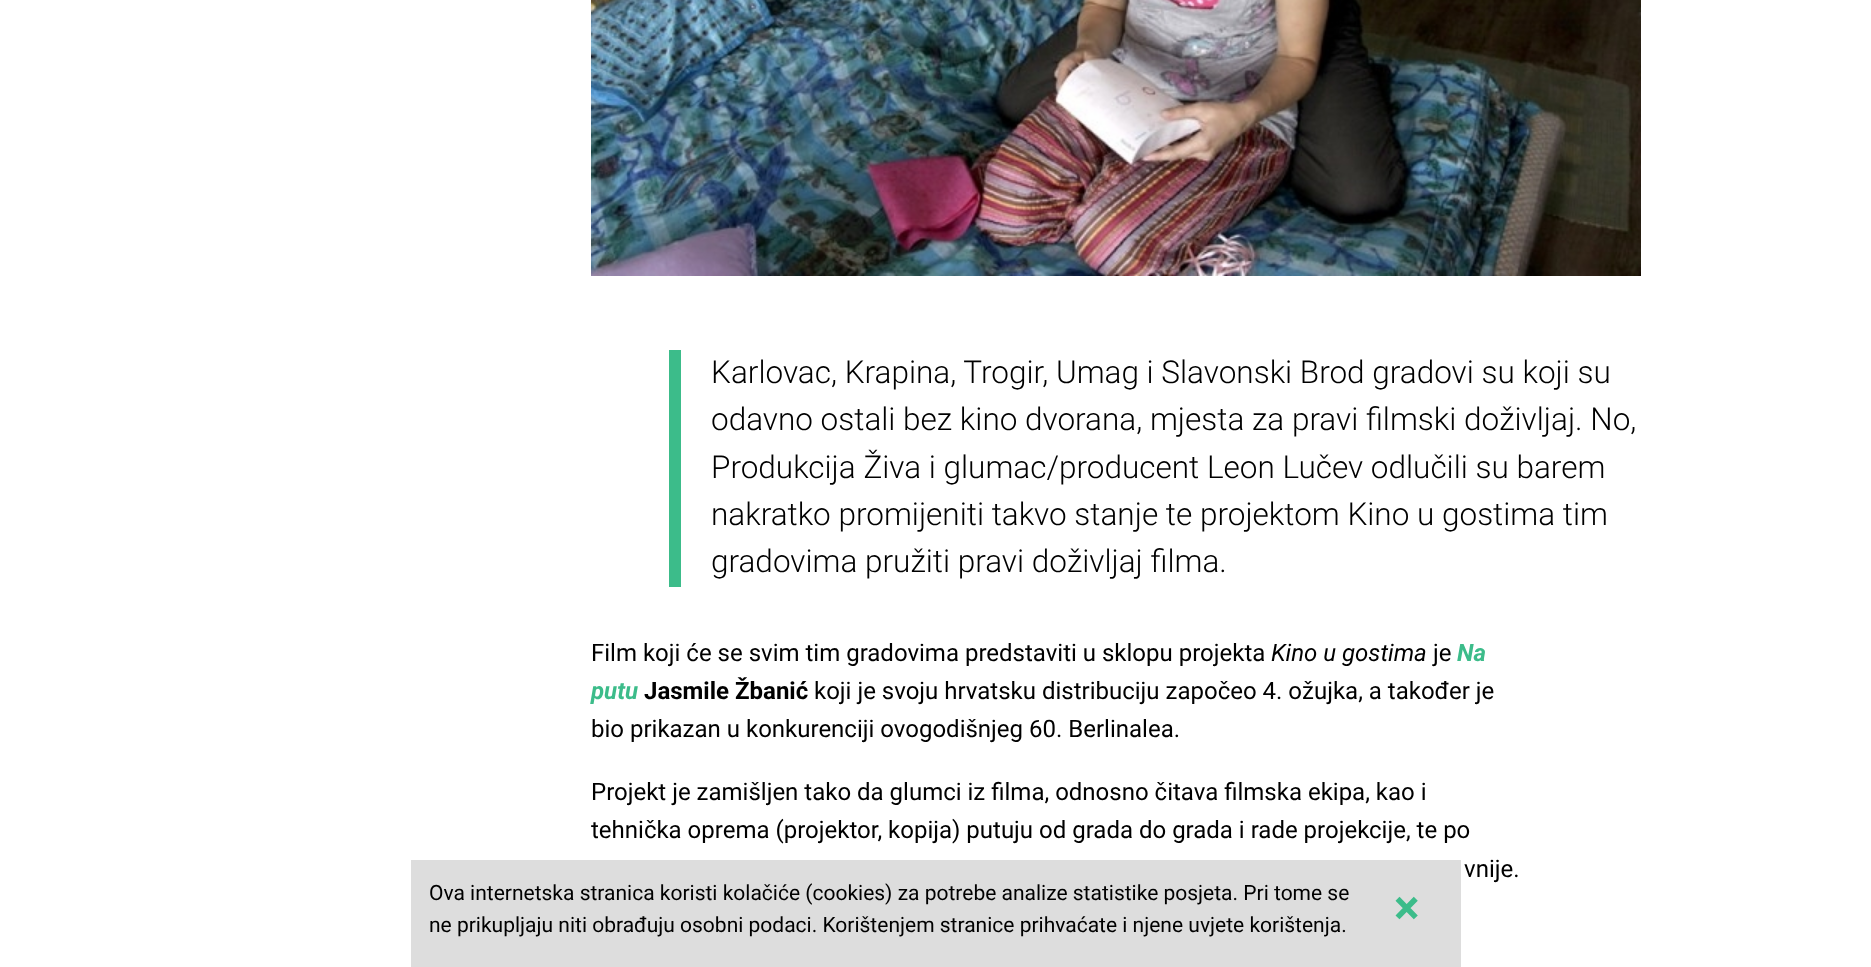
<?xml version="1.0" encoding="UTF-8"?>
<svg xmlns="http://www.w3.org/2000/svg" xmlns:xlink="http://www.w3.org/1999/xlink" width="1871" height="967">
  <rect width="100%" height="100%" fill="#ffffff" />
  <image x="591" y="0" width="1050" height="276" xlink:href="image1.png" />
  <rect x="669" y="350" width="12" height="237" fill="#3cbc8a" />
  <rect x="411" y="860" width="1050" height="107" fill="#dddddd" />
  <text x="711" y="383" style="font-family: Roboto; font-size: 31.5px; font-weight: 300; fill: #000000">Karlovac, Krapina, Trogir, Umag i Slavonski Brod gradovi su koji su</text>
  <text x="711" y="430" style="font-family: Roboto; font-size: 31.5px; font-weight: 300; fill: #000000">odavno ostali bez kino dvorana, mjesta za pravi filmski doživljaj. No,</text>
  <text x="711" y="478" style="font-family: Roboto; font-size: 31.5px; font-weight: 300; fill: #000000">Produkcija Živa i glumac/producent Leon Lučev odlučili su barem</text>
  <text x="711" y="525" style="font-family: Roboto; font-size: 31.5px; font-weight: 300; fill: #000000">nakratko promijeniti takvo stanje te projektom Kino u gostima tim</text>
  <text x="711" y="572" style="font-family: Roboto; font-size: 31.5px; font-weight: 300; fill: #000000">gradovima pružiti pravi doživljaj filma.</text>
  <text x="591" y="661" style="font-family: Roboto; font-size: 24px; fill: #000000">Film koji će se svim tim gradovima predstaviti u sklopu projekta</text>
  <text x="1271" y="661" style="font-family: Roboto; font-size: 24px; font-style: italic; fill: #000000">Kino u gostima</text>
  <text x="1433" y="661" style="font-family: Roboto; font-size: 24px; fill: #000000">je</text>
  <text x="1457" y="661" style="font-family: Roboto; font-size: 24px; font-weight: bold; font-style: italic; fill: #3cbc8a">Na</text>
  <text x="591" y="699" style="font-family: Roboto; font-size: 24px; font-weight: bold; font-style: italic; fill: #3cbc8a">putu</text>
  <text x="644" y="699" style="font-family: Roboto; font-size: 24px; font-weight: bold; fill: #000000">Jasmile Žbanić</text>
  <text x="814" y="699" style="font-family: Roboto; font-size: 24px; fill: #000000">koji je svoju hrvatsku distribuciju započeo 4. ožujka, a također je</text>
  <text x="591" y="737" style="font-family: Roboto; font-size: 24px; fill: #000000">bio prikazan u konkurenciji ovogodišnjeg 60. Berlinalea.</text>
  <text x="591" y="800" style="font-family: Roboto; font-size: 24px; fill: #000000">Projekt je zamišljen tako da glumci iz filma, odnosno čitava filmska ekipa, kao i</text>
  <text x="591" y="838" style="font-family: Roboto; font-size: 24px; fill: #000000">tehnička oprema (projektor, kopija) putuju od grada do grada i rade projekcije, te po</text>
  <text x="1464" y="877" style="font-family: Roboto; font-size: 24px; fill: #000000">vnije.</text>
  <text x="429" y="900" style="font-family: Roboto; font-size: 21px; fill: #000000">Ova internetska stranica koristi kolačiće (cookies) za potrebe analize statistike posjeta. Pri tome se</text>
  <text x="1394" y="924" style="font-family: Roboto; font-size: 48px; font-weight: bold; fill: #3cbc8a">×</text>
  <text x="429" y="932" style="font-family: Roboto; font-size: 21px; fill: #000000">ne prikupljaju niti obrađuju osobni podaci. Korištenjem stranice prihvaćate i njene uvjete korištenja.</text>
</svg>
